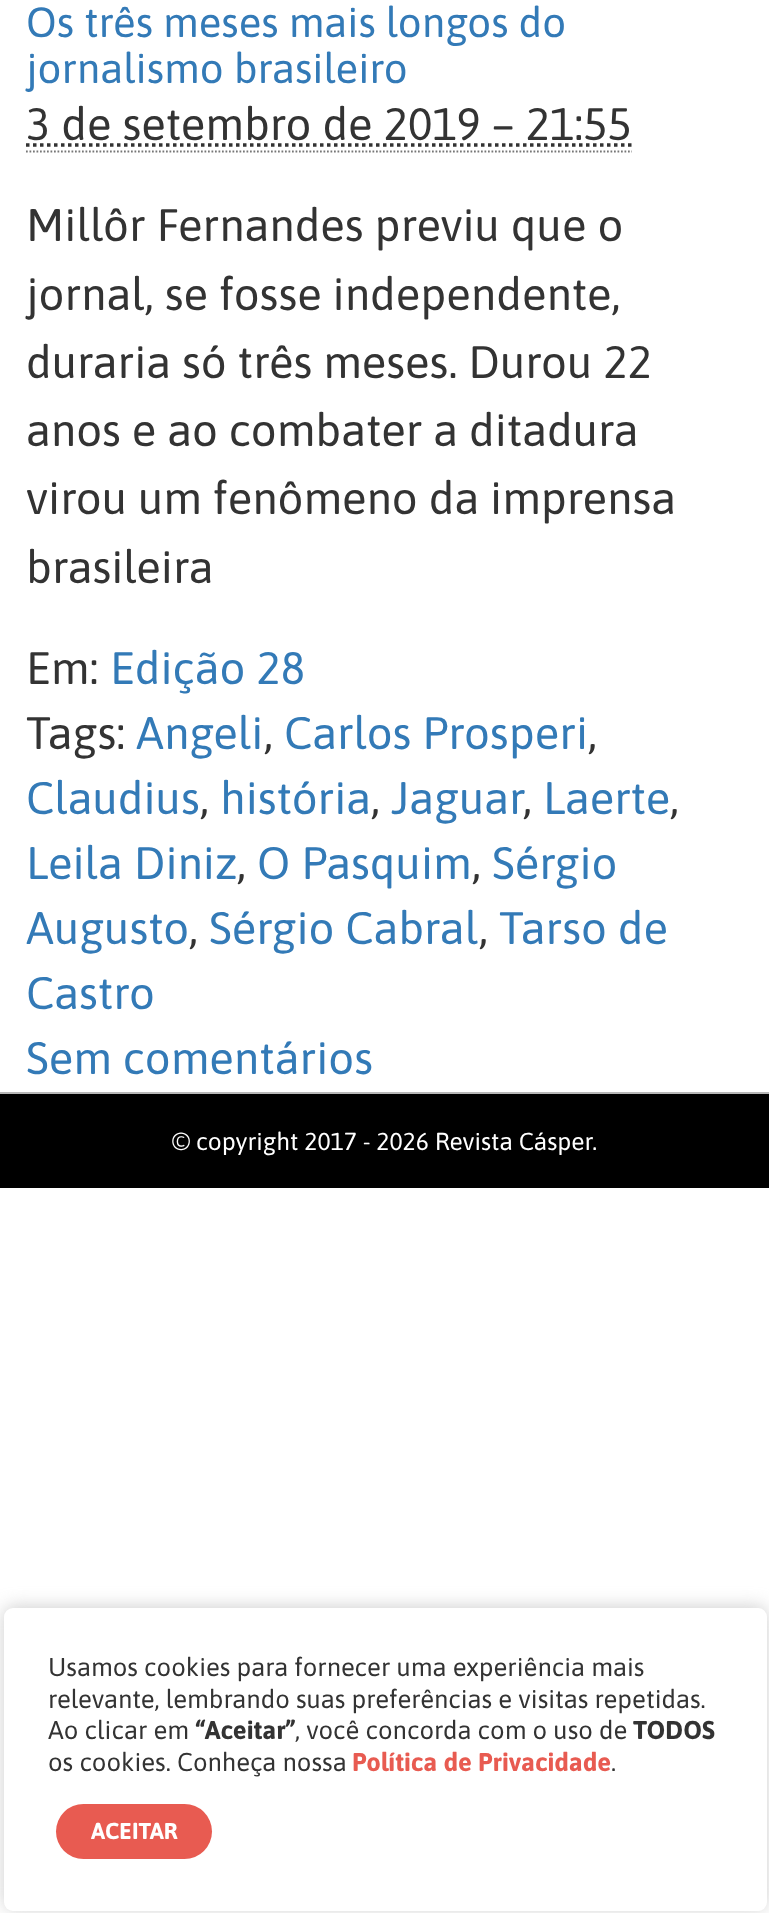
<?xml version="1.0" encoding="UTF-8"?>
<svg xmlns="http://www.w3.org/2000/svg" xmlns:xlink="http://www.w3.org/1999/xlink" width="769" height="1913">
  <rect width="100%" height="100%" fill="#ffffff" />
  <path d="M 26 151.5 h 606" fill="none" stroke="#777777" stroke-width="1.8" stroke-dasharray="1.75 1.75" />
  <path d="M 26 145 h 606" fill="none" stroke="#333333" stroke-width="3.5" stroke-dasharray="3.5 3.5" />
  <rect y="1092" width="769" height="2" fill="#b7b7b7" />
  <rect y="1094" width="769" height="94" fill="#000000" />
  <rect x="4" y="1607" width="763" height="302" rx="9" fill="#acabab" fill-opacity="0.6" filter="blur(9px)" />
  <rect x="4" y="1608" width="763" height="303" rx="9" fill="#ffffff" />
  <rect x="56" y="1804" width="156" height="55" rx="27.5" fill="#e85b51" />
  <text x="26" y="37" style="font-family: Asap; font-size: 42px; fill: #337ab7">Os três meses mais longos do</text>
  <text x="26" y="83" style="font-family: Asap; font-size: 42px; fill: #337ab7">jornalismo brasileiro</text>
  <text x="26" y="140" style="font-family: Asap; font-size: 45.5px; fill: #333333">3 de setembro de 2019 – 21:55</text>
  <text x="26" y="241" style="font-family: Asap; font-size: 45.5px; fill: #333333">Millôr Fernandes previu que o</text>
  <text x="26" y="310" style="font-family: Asap; font-size: 45.5px; fill: #333333">jornal, se fosse independente,</text>
  <text x="26" y="378" style="font-family: Asap; font-size: 45.5px; fill: #333333">duraria só três meses. Durou 22</text>
  <text x="26" y="446" style="font-family: Asap; font-size: 45.5px; fill: #333333">anos e ao combater a ditadura</text>
  <text x="26" y="514" style="font-family: Asap; font-size: 45.5px; fill: #333333">virou um fenômeno da imprensa</text>
  <text x="26" y="583" style="font-family: Asap; font-size: 45.5px; fill: #333333">brasileira</text>
  <text x="26" y="684" style="font-family: Asap; font-size: 45.5px; fill: #333333">Em:</text>
  <text x="110" y="684" style="font-family: Asap; font-size: 45.5px; fill: #337ab7">Edição 28</text>
  <text x="26" y="749" style="font-family: Asap; font-size: 45.5px; fill: #333333">Tags:</text>
  <text x="136" y="749" style="font-family: Asap; font-size: 45.5px; fill: #337ab7">Angeli</text>
  <text x="264" y="749" style="font-family: Asap; font-size: 45.5px; fill: #333333">,</text>
  <text x="284" y="749" style="font-family: Asap; font-size: 45.5px; fill: #337ab7">Carlos Prosperi</text>
  <text x="588" y="749" style="font-family: Asap; font-size: 45.5px; fill: #333333">,</text>
  <text x="26" y="814" style="font-family: Asap; font-size: 45.5px; fill: #337ab7">Claudius</text>
  <text x="200" y="814" style="font-family: Asap; font-size: 45.5px; fill: #333333">,</text>
  <text x="220" y="814" style="font-family: Asap; font-size: 45.5px; fill: #337ab7">história</text>
  <text x="371" y="814" style="font-family: Asap; font-size: 45.5px; fill: #333333">,</text>
  <text x="391" y="814" style="font-family: Asap; font-size: 45.5px; fill: #337ab7">Jaguar</text>
  <text x="523" y="814" style="font-family: Asap; font-size: 45.5px; fill: #333333">,</text>
  <text x="543" y="814" style="font-family: Asap; font-size: 45.5px; fill: #337ab7">Laerte</text>
  <text x="670" y="814" style="font-family: Asap; font-size: 45.5px; fill: #333333">,</text>
  <text x="26" y="879" style="font-family: Asap; font-size: 45.5px; fill: #337ab7">Leila Diniz</text>
  <text x="237" y="879" style="font-family: Asap; font-size: 45.5px; fill: #333333">,</text>
  <text x="257" y="879" style="font-family: Asap; font-size: 45.5px; fill: #337ab7">O Pasquim</text>
  <text x="472" y="879" style="font-family: Asap; font-size: 45.5px; fill: #333333">,</text>
  <text x="492" y="879" style="font-family: Asap; font-size: 45.5px; fill: #337ab7">Sérgio</text>
  <text x="26" y="944" style="font-family: Asap; font-size: 45.5px; fill: #337ab7">Augusto</text>
  <text x="189" y="944" style="font-family: Asap; font-size: 45.5px; fill: #333333">,</text>
  <text x="209" y="944" style="font-family: Asap; font-size: 45.5px; fill: #337ab7">Sérgio Cabral</text>
  <text x="479" y="944" style="font-family: Asap; font-size: 45.5px; fill: #333333">,</text>
  <text x="499" y="944" style="font-family: Asap; font-size: 45.5px; fill: #337ab7">Tarso de</text>
  <text x="26" y="1009" style="font-family: Asap; font-size: 45.5px; fill: #337ab7">Castro</text>
  <text x="26" y="1074" style="font-family: Asap; font-size: 45.5px; fill: #337ab7">Sem comentários</text>
  <text x="172" y="1150" style="font-family: Asap; font-size: 24.5px; fill: #ffffff">© copyright 2017 - 2026 Revista Cásper.</text>
  <text x="48" y="1676" style="font-family: Asap; font-size: 25.7px; fill: #333333">Usamos cookies para fornecer uma experiência mais</text>
  <text x="48" y="1708" style="font-family: Asap; font-size: 25.7px; fill: #333333">relevante, lembrando suas preferências e visitas repetidas.</text>
  <text x="48" y="1739" style="font-family: Asap; font-size: 25.7px; fill: #333333">Ao clicar em</text>
  <text x="195" y="1739" style="font-family: Asap; font-size: 25.7px; font-weight: bold; fill: #333333">“Aceitar”</text>
  <text x="295" y="1739" style="font-family: Asap; font-size: 25.7px; fill: #333333">, você concorda com o uso de</text>
  <text x="633" y="1739" style="font-family: Asap; font-size: 25.7px; font-weight: bold; fill: #333333">TODOS</text>
  <text x="48" y="1771" style="font-family: Asap; font-size: 25.7px; fill: #333333">os cookies. Conheça nossa</text>
  <text x="352" y="1771" style="font-family: Asap; font-size: 25.7px; font-weight: bold; fill: #e85b51">Política de Privacidade</text>
  <text x="611" y="1771" style="font-family: Asap; font-size: 25.7px; fill: #333333">.</text>
  <text x="91" y="1839" style="font-family: Asap; font-size: 23px; font-weight: bold; fill: #ffffff">ACEITAR</text>
</svg>
